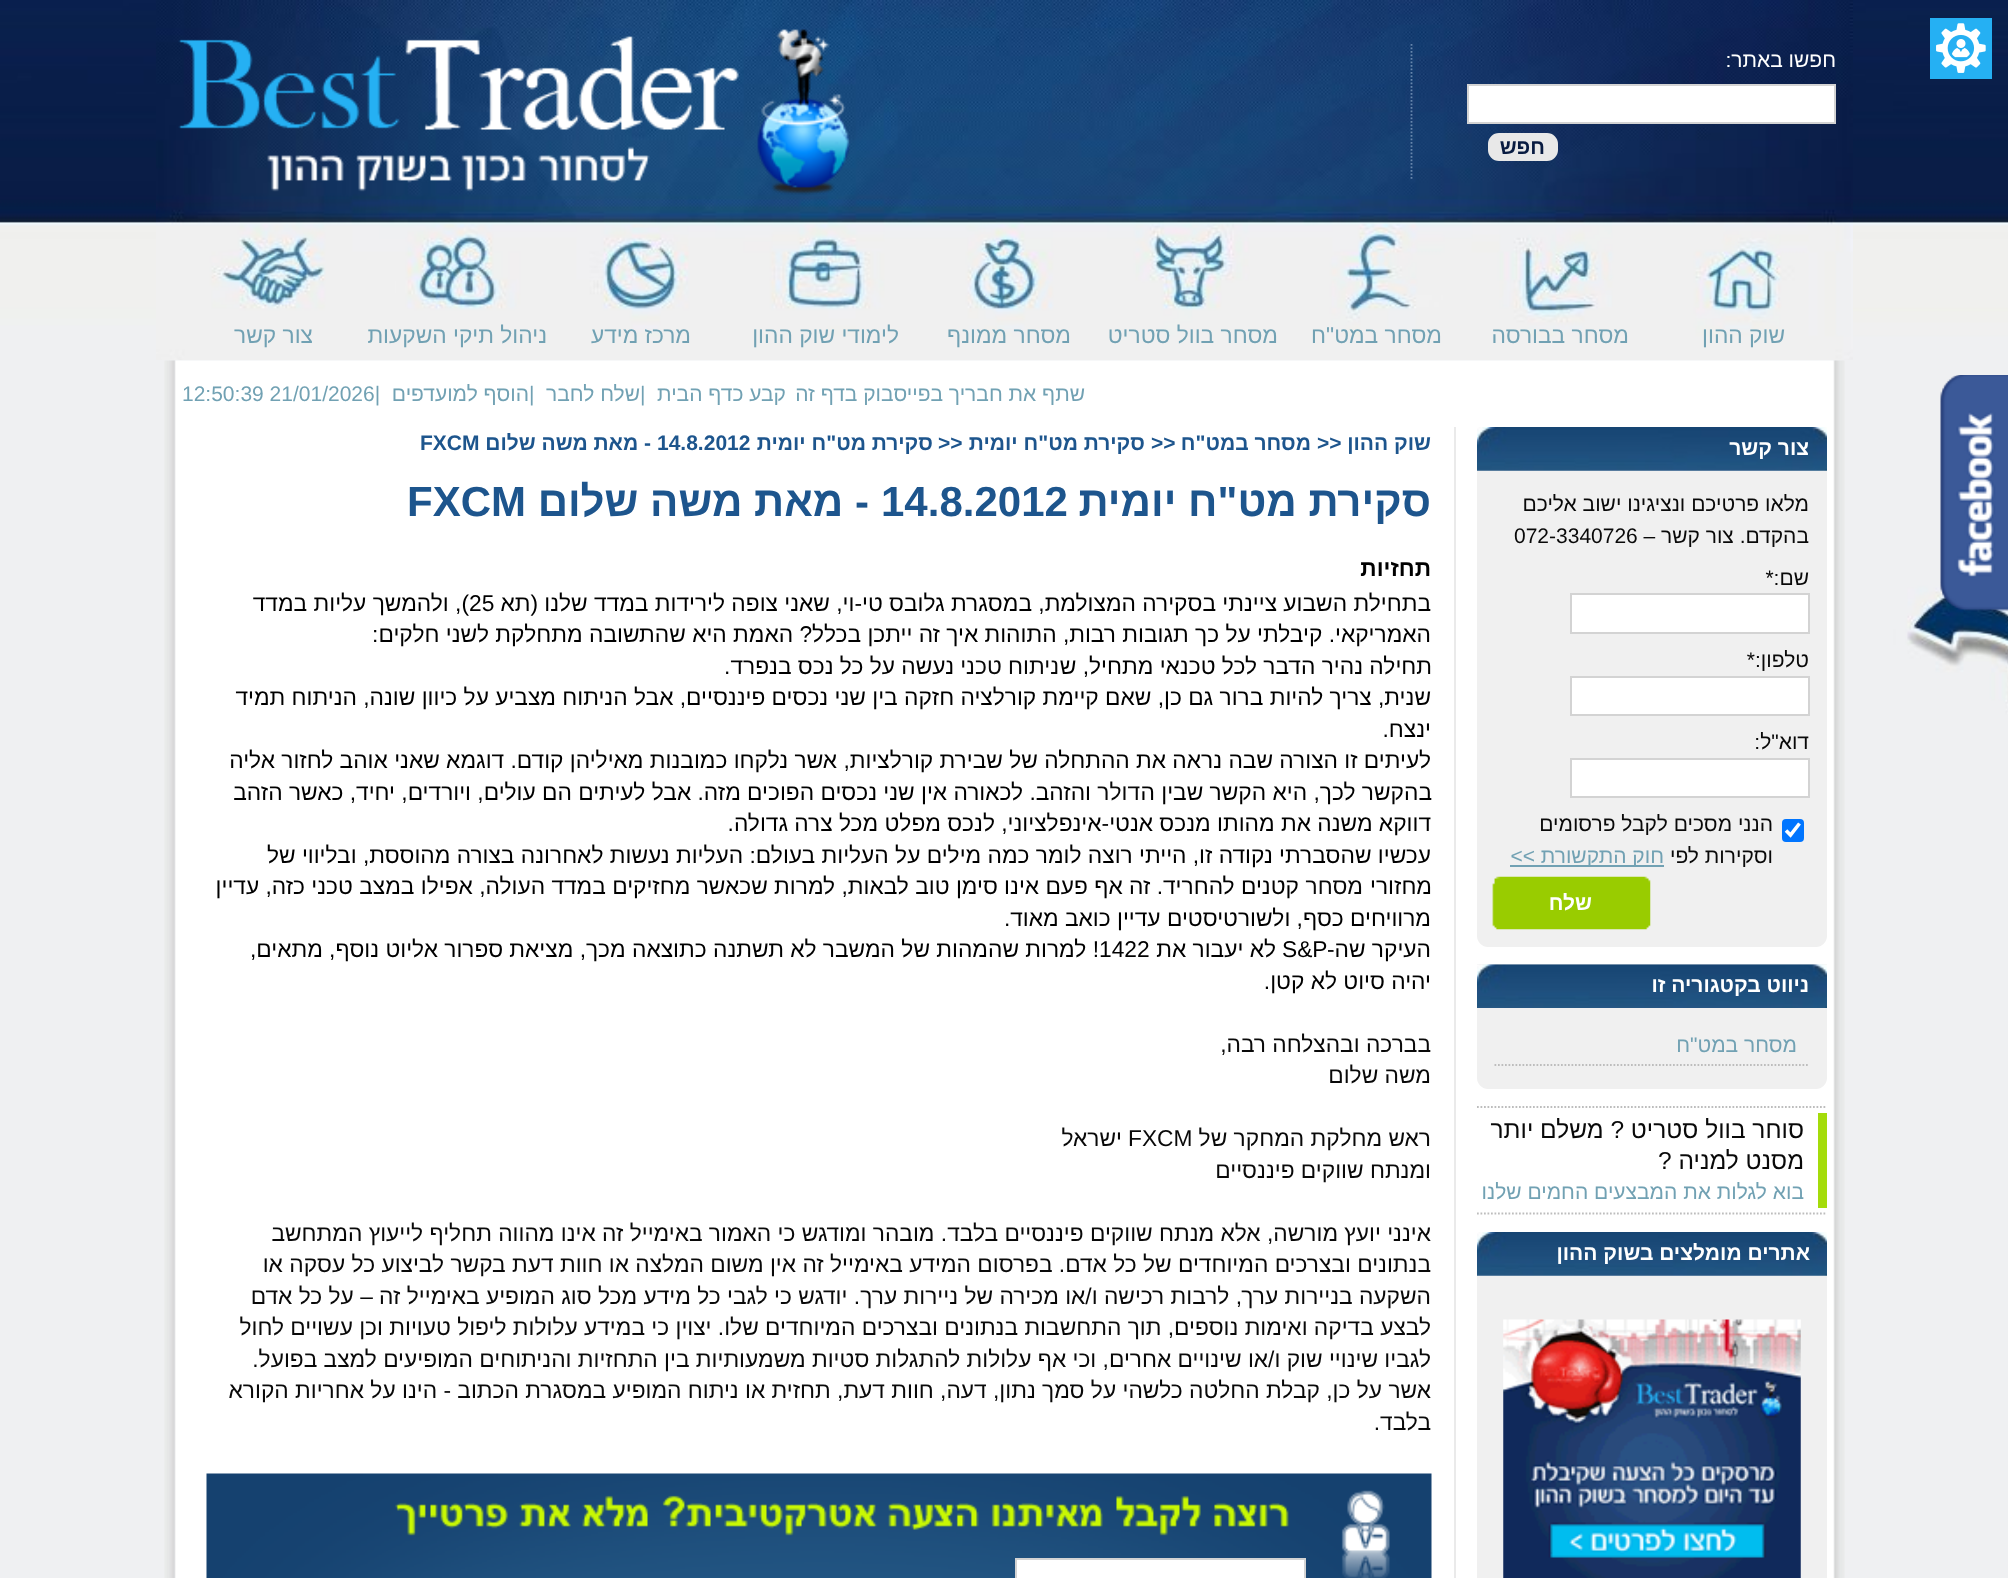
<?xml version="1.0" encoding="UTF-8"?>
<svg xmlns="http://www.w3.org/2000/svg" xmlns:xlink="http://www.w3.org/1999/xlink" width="2008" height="1578">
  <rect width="100%" height="100%" fill="#ffffff" />
  <image x="0" y="0" width="2008" height="1578" xlink:href="image1.png" />
  <rect x="1930" y="18" width="62" height="61" fill="#25b0f3" />
  <image x="1936" y="23" width="50" height="50" xlink:href="image2.png" />
  <image x="156" y="0" width="1697" height="360" xlink:href="image3.png" />
  <path d="M 1411.5 44 v 136" fill="none" stroke="#6786ac" stroke-width="1.8" stroke-dasharray="1.75 1.75" />
  <rect x="1468" y="85" width="367" height="38" fill="#ffffff" stroke="#d3d3d3" stroke-width="2" />
  <rect x="1489" y="134" width="68" height="26" rx="10" fill="#e8e8e8" stroke="#e8e8e8" stroke-width="2" />
  <image x="178" y="29" width="672" height="166" xlink:href="image4.png" />
  <image x="1940" y="375" width="68" height="237" xlink:href="image5.png" />
  <image x="1940" y="375" width="68" height="237" xlink:href="image6.png" />
  <image x="164" y="360" width="1681" height="1218" xlink:href="image7.png" />
  <path d="M 1477 427 h 350 v 509 c 0 6 -5 11 -11 11 h -328 c -6 0 -11 -5 -11 -11 z" fill="#f0f0f0" />
  <image x="1477" y="427" width="350" height="44" xlink:href="image8.png" />
  <rect x="1571" y="594" width="238" height="39" fill="#ffffff" stroke="#d3d3d3" stroke-width="2" />
  <rect x="1571" y="677" width="238" height="38" fill="#ffffff" stroke="#d3d3d3" stroke-width="2" />
  <rect x="1571" y="759" width="238" height="38" fill="#ffffff" stroke="#d3d3d3" stroke-width="2" />
  <rect x="1782" y="819" width="22" height="23" rx="4" fill="#0075ff" />
  <path d="M 1786 830.5 l 4.5 4.5 l 9 -11.5" fill="none" stroke="#ffffff" stroke-width="3.6" />
  <rect x="1510" y="865" width="154" height="2" fill="#71a1b3" />
  <image x="1492" y="876" width="159" height="54" xlink:href="image9.png" />
  <path d="M 1477 964 h 350 v 114 c 0 6 -5 11 -11 11 h -328 c -6 0 -11 -5 -11 -11 z" fill="#f0f0f0" />
  <image x="1477" y="964" width="350" height="44" xlink:href="image10.png" />
  <path d="M 1494.5 1065 h 315" fill="none" stroke="#bdbdbd" stroke-width="1.8" stroke-dasharray="1.75 1.75" />
  <path d="M 1477 1107 h 350" fill="none" stroke="#bdbdbd" stroke-width="1.8" stroke-dasharray="1.75 1.75" />
  <path d="M 1477 1213.5 h 350" fill="none" stroke="#bdbdbd" stroke-width="1.8" stroke-dasharray="1.75 1.75" />
  <rect x="1818" y="1113" width="9" height="95" fill="#a4dc0a" />
  <rect x="1477" y="1275" width="350" height="303" fill="#f0f0f0" />
  <image x="1477" y="1232" width="350" height="44" xlink:href="image8.png" />
  <image x="1503" y="1319" width="298" height="259" xlink:href="image11.png" />
  <rect x="1454" y="427" width="2" height="1151" fill="#eaeaea" />
  <image x="206" y="1473" width="1226" height="105" xlink:href="image12.png" />
  <rect x="1016" y="1559" width="289" height="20" fill="#ffffff" stroke="#d3d3d3" stroke-width="2" />
  <text x="1836" y="67" style="font-family: Liberation Sans; font-size: 21px; direction: rtl; fill: #ffffff">חפשו באתר:</text>
  <text x="1545" y="154" style="font-family: Liberation Sans; font-size: 21px; font-weight: bold; direction: rtl; fill: #081b41">חפש</text>
  <text x="1785" y="343" style="font-family: Liberation Sans; font-size: 22.75px; direction: rtl; fill: #71a1b3">שוק ההון</text>
  <text x="1629" y="343" style="font-family: Liberation Sans; font-size: 22.75px; direction: rtl; fill: #71a1b3">מסחר בבורסה</text>
  <text x="1442" y="343" style="font-family: Liberation Sans; font-size: 22.75px; direction: rtl; fill: #71a1b3">מסחר במט"ח</text>
  <text x="1278" y="343" style="font-family: Liberation Sans; font-size: 22.75px; direction: rtl; fill: #71a1b3">מסחר בוול סטריט</text>
  <text x="1071" y="343" style="font-family: Liberation Sans; font-size: 22.75px; direction: rtl; fill: #71a1b3">מסחר ממונף</text>
  <text x="899" y="343" style="font-family: Liberation Sans; font-size: 22.75px; direction: rtl; fill: #71a1b3">לימודי שוק ההון</text>
  <text x="691" y="343" style="font-family: Liberation Sans; font-size: 22.75px; direction: rtl; fill: #71a1b3">מרכז מידע</text>
  <text x="547" y="343" style="font-family: Liberation Sans; font-size: 22.75px; direction: rtl; fill: #71a1b3">ניהול תיקי השקעות</text>
  <text x="313" y="343" style="font-family: Liberation Sans; font-size: 22.75px; direction: rtl; fill: #71a1b3">צור קשר</text>
  <text x="1085" y="401" style="font-family: Liberation Sans; font-size: 21px; direction: rtl; fill: #71a1b3">שתף את חבריך בפייסבוק בדף זה</text>
  <text x="786" y="401" style="font-family: Liberation Sans; font-size: 21px; direction: rtl; fill: #71a1b3">קבע כדף הבית</text>
  <text x="640" y="401" style="font-family: Liberation Sans; font-size: 21px; fill: #71a1b3">|</text>
  <text x="640" y="401" style="font-family: Liberation Sans; font-size: 21px; direction: rtl; fill: #71a1b3">שלח לחבר</text>
  <text x="529" y="401" style="font-family: Liberation Sans; font-size: 21px; fill: #71a1b3">|</text>
  <text x="529" y="401" style="font-family: Liberation Sans; font-size: 21px; direction: rtl; fill: #71a1b3">הוסף למועדפים</text>
  <text x="182" y="401" style="font-family: Liberation Sans; font-size: 21px; fill: #71a1b3">12:50:39 21/01/2026|</text>
  <text x="1809" y="455" style="font-family: Liberation Sans; font-size: 21px; font-weight: bold; direction: rtl; fill: #ffffff">צור קשר</text>
  <text x="1809" y="511" style="font-family: Liberation Sans; font-size: 21px; direction: rtl; fill: #090909">מלאו פרטיכם ונציגינו ישוב אליכם</text>
  <text x="1809" y="543" style="font-family: Liberation Sans; font-size: 21px; direction: rtl; fill: #090909">בהקדם. צור קשר –</text>
  <text x="1514" y="543" style="font-family: Liberation Sans; font-size: 21px; fill: #090909">072-3340726</text>
  <text x="1809" y="585" style="font-family: Liberation Sans; font-size: 21px; direction: rtl; fill: #090909">שם:*</text>
  <text x="1809" y="667" style="font-family: Liberation Sans; font-size: 21px; direction: rtl; fill: #090909">טלפון:*</text>
  <text x="1809" y="749" style="font-family: Liberation Sans; font-size: 21px; direction: rtl; fill: #090909">דוא"ל:</text>
  <text x="1773" y="831" style="font-family: Liberation Sans; font-size: 21px; direction: rtl; fill: #090909">הנני מסכים לקבל פרסומים</text>
  <text x="1773" y="863" style="font-family: Liberation Sans; font-size: 21px; direction: rtl; fill: #090909">וסקירות לפי</text>
  <text x="1664" y="863" style="font-family: Liberation Sans; font-size: 21px; direction: rtl; fill: #71a1b3">חוק התקשורת &gt;&gt;</text>
  <text x="1592" y="910" style="font-family: Liberation Sans; font-size: 21px; font-weight: bold; direction: rtl; fill: #ffffff">שלח</text>
  <text x="1809" y="992" style="font-family: Liberation Sans; font-size: 21px; font-weight: bold; direction: rtl; fill: #ffffff">ניווט בקטגוריה זו</text>
  <text x="1797" y="1052" style="font-family: Liberation Sans; font-size: 21px; direction: rtl; fill: #71a1b3">מסחר במט"ח</text>
  <text x="1804" y="1138" style="font-family: Liberation Sans; font-size: 24.5px; direction: rtl; fill: #090909">סוחר בוול סטריט ? משלם יותר</text>
  <text x="1804" y="1169" style="font-family: Liberation Sans; font-size: 24.5px; direction: rtl; fill: #090909">מסנט למניה ?</text>
  <text x="1804" y="1199" style="font-family: Liberation Sans; font-size: 21px; direction: rtl; fill: #71a1b3">בוא לגלות את המבצעים החמים שלנו</text>
  <text x="1810" y="1260" style="font-family: Liberation Sans; font-size: 21px; font-weight: bold; direction: rtl; fill: #ffffff">אתרים מומלצים בשוק ההון</text>
  <text x="1431" y="450" style="font-family: Liberation Sans; font-size: 21px; font-weight: bold; direction: rtl; fill: #1d558d">שוק ההון</text>
  <text x="1317" y="450" style="font-family: Liberation Sans; font-size: 21px; font-weight: bold; fill: #1d558d">&gt;&gt;</text>
  <text x="1311" y="450" style="font-family: Liberation Sans; font-size: 21px; font-weight: bold; direction: rtl; fill: #1d558d">מסחר במט"ח</text>
  <text x="1151" y="450" style="font-family: Liberation Sans; font-size: 21px; font-weight: bold; fill: #1d558d">&gt;&gt;</text>
  <text x="1145" y="450" style="font-family: Liberation Sans; font-size: 21px; font-weight: bold; direction: rtl; fill: #1d558d">סקירת מט"ח יומית</text>
  <text x="938" y="450" style="font-family: Liberation Sans; font-size: 21px; font-weight: bold; fill: #1d558d">&gt;&gt;</text>
  <text x="933" y="450" style="font-family: Liberation Sans; font-size: 21px; font-weight: bold; direction: rtl; fill: #1d558d">סקירת מט"ח יומית</text>
  <text x="657" y="450" style="font-family: Liberation Sans; font-size: 21px; font-weight: bold; fill: #1d558d">14.8.2012</text>
  <text x="651" y="450" style="font-family: Liberation Sans; font-size: 21px; font-weight: bold; direction: rtl; fill: #1d558d">- מאת משה שלום</text>
  <text x="420" y="450" style="font-family: Liberation Sans; font-size: 21px; font-weight: bold; fill: #1d558d">FXCM</text>
  <text x="1431" y="516" style="font-family: Liberation Sans; font-size: 42px; font-weight: bold; direction: rtl; fill: #1d558d">סקירת מט"ח יומית</text>
  <text x="881" y="516" style="font-family: Liberation Sans; font-size: 42px; font-weight: bold; fill: #1d558d">14.8.2012</text>
  <text x="869" y="516" style="font-family: Liberation Sans; font-size: 42px; font-weight: bold; direction: rtl; fill: #1d558d">- מאת משה שלום</text>
  <text x="407" y="516" style="font-family: Liberation Sans; font-size: 42px; font-weight: bold; fill: #1d558d">FXCM</text>
  <text x="1431" y="576" style="font-family: Liberation Sans; font-size: 22.75px; font-weight: bold; direction: rtl; fill: #000000">תחזיות</text>
  <text x="1431" y="611" style="font-family: Liberation Sans; font-size: 22.75px; direction: rtl; fill: #000000">בתחילת השבוע ציינתי בסקירה המצולמת, במסגרת גלובס טי-וי, שאני צופה לירידות במדד שלנו (תא</text>
  <text x="469" y="611" style="font-family: Liberation Sans; font-size: 22.75px; fill: #000000">25</text>
  <text x="469" y="611" style="font-family: Liberation Sans; font-size: 22.75px; direction: rtl; fill: #000000">), ולהמשך עליות במדד</text>
  <text x="1431" y="642" style="font-family: Liberation Sans; font-size: 22.75px; direction: rtl; fill: #000000">האמריקאי. קיבלתי על כך תגובות רבות, התוהות איך זה ייתכן בכלל? האמת היא שהתשובה מתחלקת לשני חלקים:</text>
  <text x="1432" y="674" style="font-family: Liberation Sans; font-size: 22.75px; direction: rtl; fill: #000000">תחילה נהיר הדבר לכל טכנאי מתחיל, ש</text>
  <text x="1059" y="674" style="font-family: Liberation Sans; font-size: 22.75px; direction: rtl; fill: #090909">ניתוח טכני</text>
  <text x="954" y="674" style="font-family: Liberation Sans; font-size: 22.75px; direction: rtl; fill: #000000">נעשה על כל נכס בנפרד.</text>
  <text x="1431" y="705" style="font-family: Liberation Sans; font-size: 22.75px; direction: rtl; fill: #000000">שנית, צריך להיות ברור גם כן, שאם קיימת קורלציה חזקה בין שני נכסים פיננסיים, אבל הניתוח מצביע על כיוון שונה, הניתוח תמיד</text>
  <text x="1431" y="737" style="font-family: Liberation Sans; font-size: 22.75px; direction: rtl; fill: #000000">ינצח.</text>
  <text x="1431" y="768" style="font-family: Liberation Sans; font-size: 22.75px; direction: rtl; fill: #000000">לעיתים זו הצורה שבה נראה את ההתחלה של שבירת קורלציות, אשר נלקחו כמובנות מאיליהן קודם. דוגמא שאני אוהב לחזור אליה</text>
  <text x="1432" y="800" style="font-family: Liberation Sans; font-size: 22.75px; direction: rtl; fill: #000000">בהקשר לכך, היא הקשר שבין ה</text>
  <text x="1140" y="800" style="font-family: Liberation Sans; font-size: 22.75px; direction: rtl; fill: #090909">דולר</text>
  <text x="1091" y="800" style="font-family: Liberation Sans; font-size: 22.75px; direction: rtl; fill: #000000">והזהב. לכאורה אין שני נכסים הפוכים מזה. אבל לעיתים הם עולים, ויורדים, יחיד, כאשר הזהב</text>
  <text x="1431" y="831" style="font-family: Liberation Sans; font-size: 22.75px; direction: rtl; fill: #000000">דווקא משנה את מהותו מנכס אנטי-אינפלציוני, לנכס מפלט מכל צרה גדולה.</text>
  <text x="1431" y="863" style="font-family: Liberation Sans; font-size: 22.75px; direction: rtl; fill: #000000">עכשיו שהסברתי נקודה זו, הייתי רוצה לומר כמה מילים על העליות בעולם: העליות נעשות לאחרונה בצורה מהוססת, ובליווי של</text>
  <text x="1432" y="894" style="font-family: Liberation Sans; font-size: 22.75px; direction: rtl; fill: #000000">מחזורי</text>
  <text x="1363" y="894" style="font-family: Liberation Sans; font-size: 22.75px; direction: rtl; fill: #090909">מסחר</text>
  <text x="1299" y="894" style="font-family: Liberation Sans; font-size: 22.75px; direction: rtl; fill: #000000">קטנים להחריד. זה אף פעם אינו סימן טוב לבאות, למרות שכאשר מחזיקים במדד העולה, אפילו במצב טכני כזה, עדיין</text>
  <text x="1431" y="926" style="font-family: Liberation Sans; font-size: 22.75px; direction: rtl; fill: #000000">מרוויחים כסף, ולשורטיסטים עדיין כואב מאוד.</text>
  <text x="1431" y="957" style="font-family: Liberation Sans; font-size: 22.75px; direction: rtl; fill: #000000">העיקר שה-</text>
  <text x="1282" y="957" style="font-family: Liberation Sans; font-size: 22.75px; fill: #000000">S&amp;P</text>
  <text x="1276" y="957" style="font-family: Liberation Sans; font-size: 22.75px; direction: rtl; fill: #000000">לא יעבור את</text>
  <text x="1099" y="957" style="font-family: Liberation Sans; font-size: 22.75px; fill: #000000">1422</text>
  <text x="1099" y="957" style="font-family: Liberation Sans; font-size: 22.75px; direction: rtl; fill: #000000">! למרות שהמהות של המשבר לא תשתנה כתוצאה מכך, מציאת ספרור אליוט נוסף, מתאים,</text>
  <text x="1431" y="989" style="font-family: Liberation Sans; font-size: 22.75px; direction: rtl; fill: #000000">יהיה סיוט לא קטן.</text>
  <text x="1431" y="1052" style="font-family: Liberation Sans; font-size: 22.75px; direction: rtl; fill: #090909">בברכה ובהצלחה רבה,</text>
  <text x="1431" y="1083" style="font-family: Liberation Sans; font-size: 22.75px; direction: rtl; fill: #090909">משה שלום</text>
  <text x="1431" y="1146" style="font-family: Liberation Sans; font-size: 22.75px; direction: rtl; fill: #090909">ראש מחלקת המחקר של</text>
  <text x="1128" y="1146" style="font-family: Liberation Sans; font-size: 22.75px; fill: #090909">FXCM</text>
  <text x="1122" y="1146" style="font-family: Liberation Sans; font-size: 22.75px; direction: rtl; fill: #090909">ישראל</text>
  <text x="1431" y="1178" style="font-family: Liberation Sans; font-size: 22.75px; direction: rtl; fill: #090909">ומנתח שווקים פיננסיים</text>
  <text x="1431" y="1241" style="font-family: Liberation Sans; font-size: 22.75px; direction: rtl; fill: #090909">אינני יועץ מורשה, אלא מנתח שווקים פיננסיים בלבד. מובהר ומודגש כי האמור באימייל זה אינו מהווה תחליף לייעוץ המתחשב</text>
  <text x="1431" y="1272" style="font-family: Liberation Sans; font-size: 22.75px; direction: rtl; fill: #090909">בנתונים ובצרכים המיוחדים של כל אדם. בפרסום המידע באימייל זה אין משום המלצה או חוות דעת בקשר לביצוע כל עסקה או</text>
  <text x="1431" y="1304" style="font-family: Liberation Sans; font-size: 22.75px; direction: rtl; fill: #090909">השקעה ב</text>
  <text x="1339" y="1304" style="font-family: Liberation Sans; font-size: 22.75px; direction: rtl; fill: #090909">ניירות ערך</text>
  <text x="1242" y="1304" style="font-family: Liberation Sans; font-size: 22.75px; direction: rtl; fill: #090909">, לרבות רכישה ו/או מכירה של</text>
  <text x="958" y="1304" style="font-family: Liberation Sans; font-size: 22.75px; direction: rtl; fill: #090909">ניירות ערך</text>
  <text x="860" y="1304" style="font-family: Liberation Sans; font-size: 22.75px; direction: rtl; fill: #090909">. יודגש כי לגבי כל מידע מכל סוג המופיע באימייל זה – על כל אדם</text>
  <text x="1431" y="1335" style="font-family: Liberation Sans; font-size: 22.75px; direction: rtl; fill: #090909">לבצע בדיקה ואימות נוספים, תוך התחשבות בנתונים ובצרכים המיוחדים שלו. יצוין כי במידע עלולות ליפול טעויות וכן עשויים לחול</text>
  <text x="1431" y="1367" style="font-family: Liberation Sans; font-size: 22.75px; direction: rtl; fill: #090909">לגביו שינויי שוק ו/או שינויים אחרים, וכי אף עלולות להתגלות סטיות משמעותיות בין התחזיות והניתוחים המופיעים למצב בפועל.</text>
  <text x="1431" y="1398" style="font-family: Liberation Sans; font-size: 22.75px; direction: rtl; fill: #090909">אשר על כן, קבלת החלטה כלשהי על סמך נתון, דעה, חוות דעת, תחזית או ניתוח המופיע במסגרת הכתוב - הינו על אחריות הקורא</text>
  <text x="1431" y="1430" style="font-family: Liberation Sans; font-size: 22.75px; direction: rtl; fill: #090909">בלבד.</text>
</svg>
